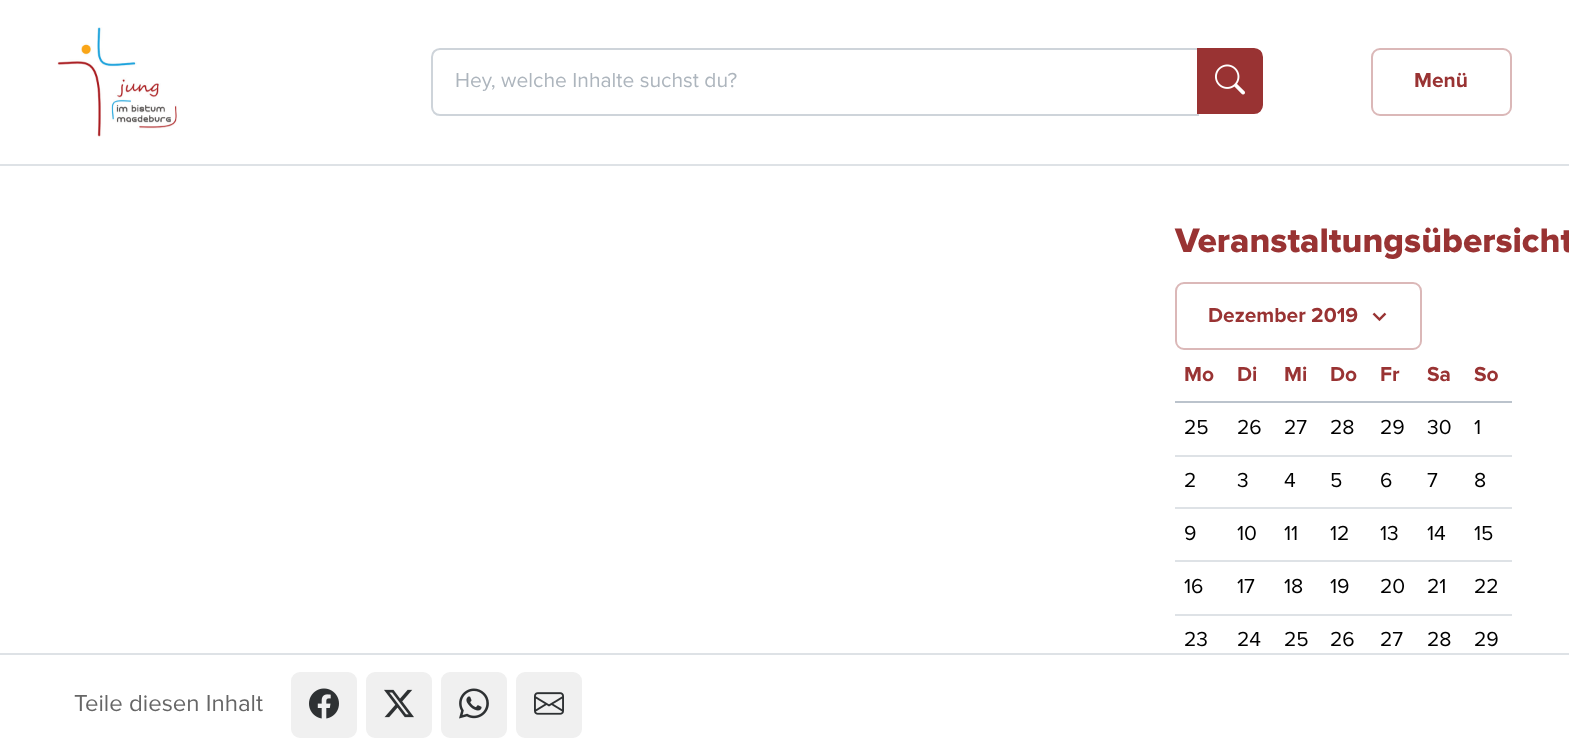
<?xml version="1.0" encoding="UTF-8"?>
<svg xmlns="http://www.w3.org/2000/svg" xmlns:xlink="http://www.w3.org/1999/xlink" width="1569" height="756">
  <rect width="100%" height="100%" fill="#ffffff" />
  <rect y="164" width="1569" height="2" fill="#dee2e6" />
  <image x="57" y="27" width="120" height="110" xlink:href="image1.png" />
  <path d="M 440 49 h 758 v 66 h -758 c -4.5 0 -8 -3.5 -8 -8 v -50 c 0 -4.5 3.5 -8 8 -8 z" fill="none" stroke="#ced4da" stroke-width="2" />
  <path d="M 1198 49 h 56 c 4.5 0 8 3.5 8 8 v 48 c 0 4.5 -3.5 8 -8 8 h -56 z" fill="#993333" stroke="#993333" stroke-width="2" />
  <image x="1215" y="64" width="30" height="31" xlink:href="image2.png" />
  <rect x="1372" y="49" width="139" height="66" rx="8" fill="none" stroke="#dbb8b8" stroke-width="2" />
  <rect x="1176" y="283" width="245" height="66" rx="8" fill="none" stroke="#dbb8b8" stroke-width="2" />
  <image x="1372" y="312" width="15" height="10" xlink:href="image3.png" />
  <rect x="1175" y="401" width="337" height="2" fill="#bbc3cc" />
  <rect x="1175" y="455" width="337" height="2" fill="#dee2e6" />
  <rect x="1175" y="507" width="337" height="2" fill="#dee2e6" />
  <rect x="1175" y="560" width="337" height="2" fill="#dee2e6" />
  <rect x="1175" y="614" width="337" height="2" fill="#dee2e6" />
  <rect y="653" width="1569" height="2" fill="#dee2e6" />
  <rect x="292" y="673" width="64" height="64" rx="8" fill="#f0f0f0" stroke="#f0f0f0" stroke-width="2" />
  <image x="309" y="688" width="30" height="31" xlink:href="image4.png" />
  <rect x="367" y="673" width="64" height="64" rx="8" fill="#f0f0f0" stroke="#f0f0f0" stroke-width="2" />
  <image x="384" y="689" width="30" height="29" xlink:href="image5.png" />
  <rect x="442" y="673" width="64" height="64" rx="8" fill="#f0f0f0" stroke="#f0f0f0" stroke-width="2" />
  <image x="459" y="688" width="30" height="31" xlink:href="image6.png" />
  <rect x="517" y="673" width="64" height="64" rx="8" fill="#f0f0f0" stroke="#f0f0f0" stroke-width="2" />
  <image x="534" y="692" width="30" height="23" xlink:href="image7.png" />
  <text x="455" y="87" style="font-family: Proxima Nova; font-size: 21px; fill: #adb5bd">Hey, welche Inhalte suchst du?</text>
  <text x="1414" y="87" style="font-family: Proxima Nova; font-size: 21px; font-weight: bold; fill: #993333">Menü</text>
  <text x="1175" y="252" style="font-family: Proxima Nova; font-size: 35.25px; font-weight: 800; fill: #993333">Veranstaltungsübersicht</text>
  <text x="1208" y="322" style="font-family: Proxima Nova; font-size: 21px; font-weight: bold; fill: #993333">Dezember 2019</text>
  <text x="1184" y="381" style="font-family: Proxima Nova; font-size: 21px; font-weight: bold; fill: #993333">Mo</text>
  <text x="1237" y="381" style="font-family: Proxima Nova; font-size: 21px; font-weight: bold; fill: #993333">Di</text>
  <text x="1284" y="381" style="font-family: Proxima Nova; font-size: 21px; font-weight: bold; fill: #993333">Mi</text>
  <text x="1330" y="381" style="font-family: Proxima Nova; font-size: 21px; font-weight: bold; fill: #993333">Do</text>
  <text x="1380" y="381" style="font-family: Proxima Nova; font-size: 21px; font-weight: bold; fill: #993333">Fr</text>
  <text x="1427" y="381" style="font-family: Proxima Nova; font-size: 21px; font-weight: bold; fill: #993333">Sa</text>
  <text x="1474" y="381" style="font-family: Proxima Nova; font-size: 21px; font-weight: bold; fill: #993333">So</text>
  <text x="1184" y="434" style="font-family: Proxima Nova; font-size: 21px; fill: #000000">25</text>
  <text x="1237" y="434" style="font-family: Proxima Nova; font-size: 21px; fill: #000000">26</text>
  <text x="1284" y="434" style="font-family: Proxima Nova; font-size: 21px; fill: #000000">27</text>
  <text x="1330" y="434" style="font-family: Proxima Nova; font-size: 21px; fill: #000000">28</text>
  <text x="1380" y="434" style="font-family: Proxima Nova; font-size: 21px; fill: #000000">29</text>
  <text x="1427" y="434" style="font-family: Proxima Nova; font-size: 21px; fill: #000000">30</text>
  <text x="1474" y="434" style="font-family: Proxima Nova; font-size: 21px; fill: #000000">1</text>
  <text x="1184" y="487" style="font-family: Proxima Nova; font-size: 21px; fill: #000000">2</text>
  <text x="1237" y="487" style="font-family: Proxima Nova; font-size: 21px; fill: #000000">3</text>
  <text x="1284" y="487" style="font-family: Proxima Nova; font-size: 21px; fill: #000000">4</text>
  <text x="1330" y="487" style="font-family: Proxima Nova; font-size: 21px; fill: #000000">5</text>
  <text x="1380" y="487" style="font-family: Proxima Nova; font-size: 21px; fill: #000000">6</text>
  <text x="1427" y="487" style="font-family: Proxima Nova; font-size: 21px; fill: #000000">7</text>
  <text x="1474" y="487" style="font-family: Proxima Nova; font-size: 21px; fill: #000000">8</text>
  <text x="1184" y="540" style="font-family: Proxima Nova; font-size: 21px; fill: #000000">9</text>
  <text x="1237" y="540" style="font-family: Proxima Nova; font-size: 21px; fill: #000000">10</text>
  <text x="1284" y="540" style="font-family: Proxima Nova; font-size: 21px; fill: #000000">11</text>
  <text x="1330" y="540" style="font-family: Proxima Nova; font-size: 21px; fill: #000000">12</text>
  <text x="1380" y="540" style="font-family: Proxima Nova; font-size: 21px; fill: #000000">13</text>
  <text x="1427" y="540" style="font-family: Proxima Nova; font-size: 21px; fill: #000000">14</text>
  <text x="1474" y="540" style="font-family: Proxima Nova; font-size: 21px; fill: #000000">15</text>
  <text x="1184" y="593" style="font-family: Proxima Nova; font-size: 21px; fill: #000000">16</text>
  <text x="1237" y="593" style="font-family: Proxima Nova; font-size: 21px; fill: #000000">17</text>
  <text x="1284" y="593" style="font-family: Proxima Nova; font-size: 21px; fill: #000000">18</text>
  <text x="1330" y="593" style="font-family: Proxima Nova; font-size: 21px; fill: #000000">19</text>
  <text x="1380" y="593" style="font-family: Proxima Nova; font-size: 21px; fill: #000000">20</text>
  <text x="1427" y="593" style="font-family: Proxima Nova; font-size: 21px; fill: #000000">21</text>
  <text x="1474" y="593" style="font-family: Proxima Nova; font-size: 21px; fill: #000000">22</text>
  <text x="1184" y="646" style="font-family: Proxima Nova; font-size: 21px; fill: #000000">23</text>
  <text x="1237" y="646" style="font-family: Proxima Nova; font-size: 21px; fill: #000000">24</text>
  <text x="1284" y="646" style="font-family: Proxima Nova; font-size: 21px; fill: #000000">25</text>
  <text x="1330" y="646" style="font-family: Proxima Nova; font-size: 21px; fill: #000000">26</text>
  <text x="1380" y="646" style="font-family: Proxima Nova; font-size: 21px; fill: #000000">27</text>
  <text x="1427" y="646" style="font-family: Proxima Nova; font-size: 21px; fill: #000000">28</text>
  <text x="1474" y="646" style="font-family: Proxima Nova; font-size: 21px; fill: #000000">29</text>
  <text x="74" y="711" style="font-family: Proxima Nova; font-size: 24px; fill: #666666">Teile diesen Inhalt</text>
</svg>
